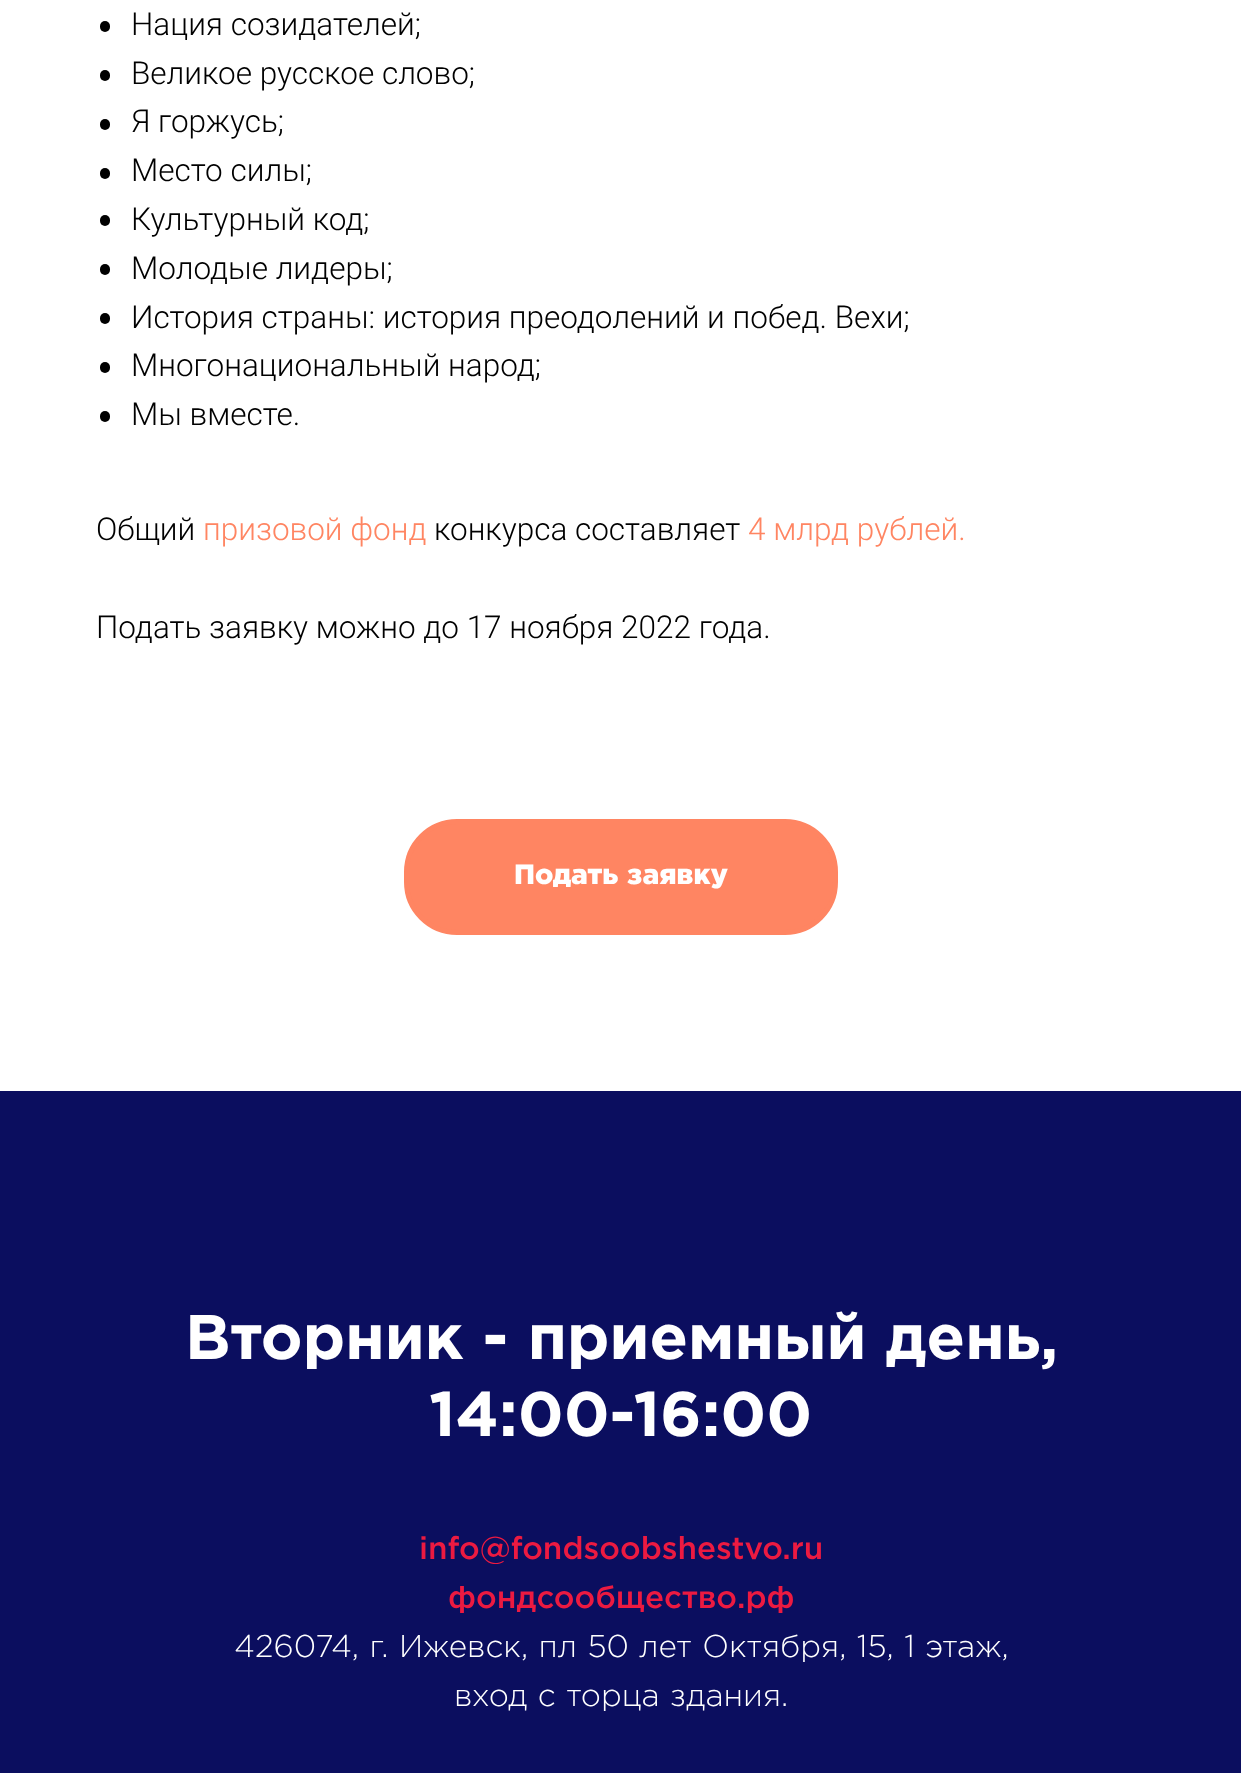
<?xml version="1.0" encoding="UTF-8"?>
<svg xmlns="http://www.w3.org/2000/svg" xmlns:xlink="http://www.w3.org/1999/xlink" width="1241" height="1773">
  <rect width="100%" height="100%" fill="#ffffff" />
  <rect x="100" y="21" width="10" height="11" rx="5" fill="#000000" />
  <rect x="100" y="70" width="10" height="11" rx="5" fill="#000000" />
  <rect x="100" y="119" width="10" height="11" rx="5" fill="#000000" />
  <rect x="100" y="168" width="10" height="11" rx="5" fill="#000000" />
  <rect x="100" y="215" width="10" height="11" rx="5" fill="#000000" />
  <rect x="100" y="264" width="10" height="11" rx="5" fill="#000000" />
  <rect x="100" y="313" width="10" height="11" rx="5" fill="#000000" />
  <rect x="100" y="362" width="10" height="11" rx="5" fill="#000000" />
  <rect x="100" y="411" width="10" height="11" rx="5" fill="#000000" />
  <rect x="406.5" y="821.5" width="429" height="111" rx="50.5" fill="#ff8562" stroke="#ff8562" stroke-width="5" />
  <rect y="1091" width="1241" height="682" fill="#0b0e5f" />
  <text x="131" y="35" style="font-family: Roboto; font-size: 31.5px; font-weight: 300; fill: #000000">Нация созидателей;</text>
  <text x="131" y="84" style="font-family: Roboto; font-size: 31.5px; font-weight: 300; fill: #000000">Великое русское слово;</text>
  <text x="131" y="132" style="font-family: Roboto; font-size: 31.5px; font-weight: 300; fill: #000000">Я горжусь;</text>
  <text x="131" y="181" style="font-family: Roboto; font-size: 31.5px; font-weight: 300; fill: #000000">Место силы;</text>
  <text x="131" y="230" style="font-family: Roboto; font-size: 31.5px; font-weight: 300; fill: #000000">Культурный код;</text>
  <text x="131" y="279" style="font-family: Roboto; font-size: 31.5px; font-weight: 300; fill: #000000">Молодые лидеры;</text>
  <text x="131" y="328" style="font-family: Roboto; font-size: 31.5px; font-weight: 300; fill: #000000">История страны: история преодолений и побед. Вехи;</text>
  <text x="131" y="376" style="font-family: Roboto; font-size: 31.5px; font-weight: 300; fill: #000000">Многонациональный народ;</text>
  <text x="131" y="425" style="font-family: Roboto; font-size: 31.5px; font-weight: 300; fill: #000000">Мы вместе.</text>
  <text x="96" y="540" style="font-family: Roboto; font-size: 31.5px; font-weight: 300; fill: #000000">Общий</text>
  <text x="203" y="540" style="font-family: Roboto; font-size: 31.5px; font-weight: 300; fill: #ff8562">призовой фонд</text>
  <text x="434" y="540" style="font-family: Roboto; font-size: 31.5px; font-weight: 300; fill: #000000">конкурса составляет</text>
  <text x="748" y="540" style="font-family: Roboto; font-size: 31.5px; font-weight: 300; fill: #ff8562">4 млрд рублей.</text>
  <text x="96" y="638" style="font-family: Roboto; font-size: 31.5px; font-weight: 300; fill: #000000">Подать заявку можно до 17 ноября 2022 года.</text>
  <text x="514" y="884" word-spacing="1" style="font-family: Gotham; font-size: 28px; font-weight: 900; fill: #ffffff">Подать заявку</text>
  <text x="185" y="1359" word-spacing="0.5" style="font-family: Gotham; font-size: 63px; font-weight: bold; fill: #ffffff">Вторник - приемный день,</text>
  <text x="429" y="1436" style="font-family: Gotham; font-size: 63px; font-weight: bold; fill: #ffffff">14:00-16:00</text>
  <text x="419" y="1559" style="font-family: Gotham; font-size: 31.5px; font-weight: 500; fill: #ec1a41">info@fondsoobshestvo.ru</text>
  <text x="448" y="1608" style="font-family: Gotham; font-size: 31.5px; font-weight: 500; fill: #ec1a41">фондсообщество.рф</text>
  <text x="234" y="1657" word-spacing="1" style="font-family: Gotham; font-size: 31.5px; font-weight: 300; fill: #ffffff">426074, г. Ижевск, пл 50 лет Октября, 15, 1 этаж,</text>
  <text x="454" y="1706" word-spacing="1" style="font-family: Gotham; font-size: 31.5px; font-weight: 300; fill: #ffffff">вход с торца здания.</text>
</svg>
